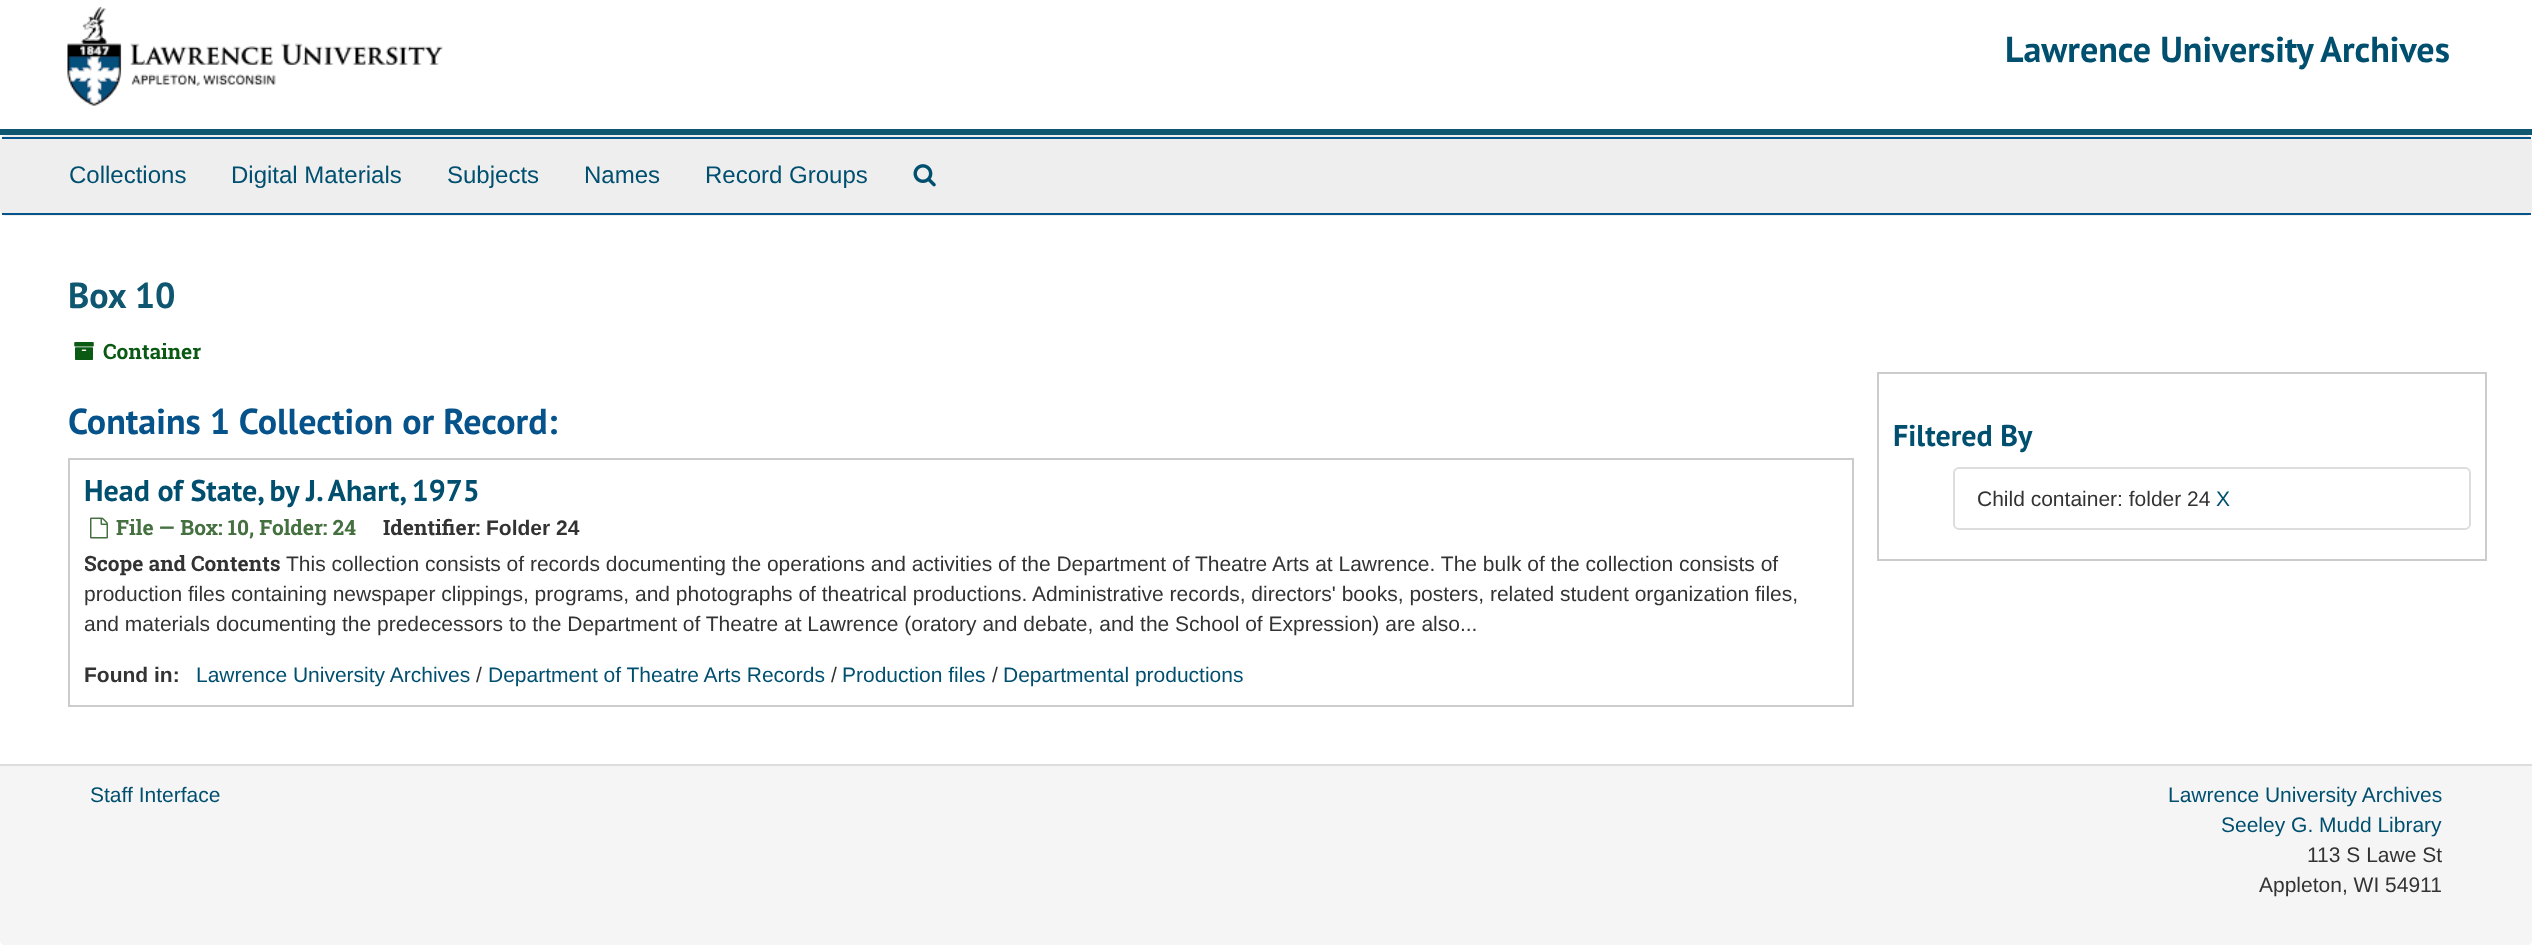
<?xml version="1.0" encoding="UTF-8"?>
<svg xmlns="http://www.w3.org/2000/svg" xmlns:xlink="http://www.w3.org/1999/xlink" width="2532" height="946">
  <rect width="100%" height="100%" fill="#ffffff" />
  <rect y="129" width="2532" height="6" fill="#0f5670" />
  <image x="67" y="6" width="376" height="100" xlink:href="image1.png" />
  <rect x="1" y="136" width="2530" height="79" rx="5" fill="none" stroke="#eeeeee" stroke-width="2" />
  <rect x="2" y="139" width="2528" height="74" fill="#eeeeee" />
  <rect x="2" y="137" width="2529" height="2" fill="#05538a" />
  <rect x="2" y="213" width="2529" height="2" fill="#05538a" />
  <image x="913" y="164" width="23" height="23" xlink:href="image2.png" />
  <image x="74" y="342" width="20" height="18" xlink:href="image3.png" />
  <rect x="69" y="459" width="1784" height="247" fill="none" stroke="#cccccc" stroke-width="2" />
  <image x="90" y="517" width="18" height="22" xlink:href="image4.png" />
  <rect x="1878" y="373" width="608" height="187" fill="none" stroke="#cccccc" stroke-width="2" />
  <rect x="1954" y="468" width="516" height="61" rx="5" fill="none" stroke="#dddddd" stroke-width="2" />
  <path d="M 0 764 h 2532 v 176 c 0 3 -2 5 -5 5 h -2522 c -3 0 -5 -2 -5 -5 z" fill="#f5f5f5" />
  <rect y="764" width="2532" height="2" fill="#dddddd" />
  <text x="2005" y="62" style="font-family: PT Sans; font-size: 36px; font-weight: bold; fill: #004f6f">Lawrence University Archives</text>
  <text x="69" y="183" style="font-family: Liberation Sans; font-size: 24px; fill: #004f6f">Collections</text>
  <text x="231" y="183" style="font-family: Liberation Sans; font-size: 24px; fill: #004f6f">Digital Materials</text>
  <text x="447" y="183" style="font-family: Liberation Sans; font-size: 24px; fill: #004f6f">Subjects</text>
  <text x="584" y="183" style="font-family: Liberation Sans; font-size: 24px; fill: #004f6f">Names</text>
  <text x="705" y="183" style="font-family: Liberation Sans; font-size: 24px; fill: #004f6f">Record Groups</text>
  <text x="68" y="308" style="font-family: PT Sans; font-size: 36px; font-weight: bold; fill: #0f5670">Box 10</text>
  <text x="103" y="359" style="font-family: Roboto Slab; font-size: 21px; font-weight: bold; fill: #0b5a14">Container</text>
  <text x="68" y="434" style="font-family: PT Sans; font-size: 36px; font-weight: bold; fill: #05538a">Contains 1 Collection or Record:</text>
  <text x="84" y="501" style="font-family: PT Sans; font-size: 30px; font-weight: bold; fill: #004f6f">Head of State, by J. Ahart, 1975</text>
  <text x="116" y="535" style="font-family: Roboto Slab; font-size: 21px; font-weight: bold; fill: #457141">File — Box: 10, Folder: 24</text>
  <text x="383" y="535" style="font-family: Roboto Slab; font-size: 21px; font-weight: bold; fill: #333333">Identifier:</text>
  <text x="486" y="535" style="font-family: Liberation Sans; font-size: 21px; font-weight: bold; fill: #333333">Folder 24</text>
  <text x="84" y="571" style="font-family: Roboto Slab; font-size: 21px; font-weight: bold; fill: #333333">Scope and Contents</text>
  <text x="286" y="571" style="font-family: Liberation Sans; font-size: 21px; fill: #333333">This collection consists of records documenting the operations and activities of the Department of Theatre Arts at Lawrence. The bulk of the collection consists of</text>
  <text x="84" y="601" style="font-family: Liberation Sans; font-size: 21px; fill: #333333">production files containing newspaper clippings, programs, and photographs of theatrical productions. Administrative records, directors' books, posters, related student organization files,</text>
  <text x="84" y="631" style="font-family: Liberation Sans; font-size: 21px; fill: #333333">and materials documenting the predecessors to the Department of Theatre at Lawrence (oratory and debate, and the School of Expression) are also...</text>
  <text x="84" y="682" style="font-family: Liberation Sans; font-size: 21px; font-weight: bold; fill: #333333">Found in:</text>
  <text x="196" y="682" style="font-family: Liberation Sans; font-size: 21px; fill: #004f6f">Lawrence University Archives</text>
  <text x="476" y="682" style="font-family: Liberation Sans; font-size: 21px; fill: #333333">/</text>
  <text x="488" y="682" style="font-family: Liberation Sans; font-size: 21px; fill: #004f6f">Department of Theatre Arts Records</text>
  <text x="831" y="682" style="font-family: Liberation Sans; font-size: 21px; fill: #333333">/</text>
  <text x="842" y="682" style="font-family: Liberation Sans; font-size: 21px; fill: #004f6f">Production files</text>
  <text x="992" y="682" style="font-family: Liberation Sans; font-size: 21px; fill: #333333">/</text>
  <text x="1003" y="682" style="font-family: Liberation Sans; font-size: 21px; fill: #004f6f">Departmental productions</text>
  <text x="1893" y="446" style="font-family: PT Sans; font-size: 30px; font-weight: bold; fill: #004f6f">Filtered By</text>
  <text x="1977" y="506" style="font-family: Liberation Sans; font-size: 21px; fill: #333333">Child container: folder 24</text>
  <text x="2216" y="506" style="font-family: Liberation Sans; font-size: 21px; fill: #004f6f">X</text>
  <text x="90" y="802" style="font-family: Liberation Sans; font-size: 21px; fill: #004f6f">Staff Interface</text>
  <text x="2168" y="802" style="font-family: Liberation Sans; font-size: 21px; fill: #004f6f">Lawrence University Archives</text>
  <text x="2221" y="832" style="font-family: Liberation Sans; font-size: 21px; fill: #004f6f">Seeley G. Mudd Library</text>
  <text x="2307" y="862" style="font-family: Liberation Sans; font-size: 21px; fill: #333333">113 S Lawe St</text>
  <text x="2259" y="892" style="font-family: Liberation Sans; font-size: 21px; fill: #333333">Appleton, WI 54911</text>
</svg>
